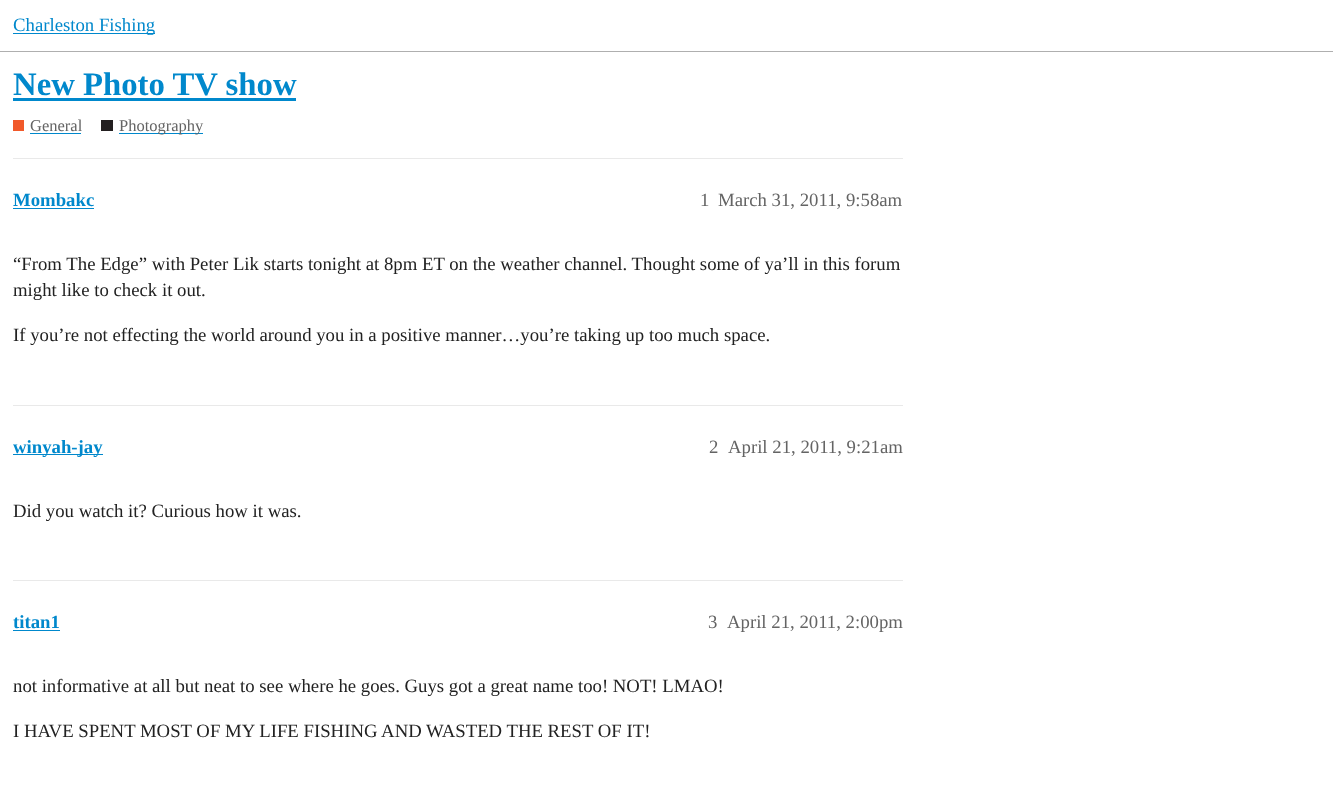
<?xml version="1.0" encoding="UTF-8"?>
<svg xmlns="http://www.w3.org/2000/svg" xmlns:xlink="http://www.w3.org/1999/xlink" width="1333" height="794">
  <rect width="100%" height="100%" fill="#ffffff" />
  <rect y="51" width="1333" height="1" fill="#afafaf" />
  <rect x="13" y="33" width="142" height="1" fill="#0088cc" />
  <rect x="13" y="98" width="283" height="3" fill="#0088cc" />
  <rect x="13" y="120" width="11" height="11" fill="#f1592a" />
  <rect x="30" y="133" width="51" height="1" fill="#0088cc" />
  <rect x="101" y="120" width="12" height="11" fill="#231f20" />
  <rect x="119" y="133" width="84" height="1" fill="#0088cc" />
  <rect x="13" y="158" width="890" height="1" fill="#e9e9e9" />
  <rect x="13" y="208" width="81" height="1" fill="#0088cc" />
  <rect x="13" y="405" width="890" height="1" fill="#e9e9e9" />
  <rect x="13" y="454" width="90" height="1" fill="#0088cc" />
  <rect x="13" y="580" width="890" height="1" fill="#e9e9e9" />
  <rect x="13" y="630" width="47" height="1" fill="#0088cc" />
  <text x="13" y="31" style="font-family: Liberation Serif; font-size: 18.75px; fill: #0088cc">Charleston Fishing</text>
  <text x="13" y="95" style="font-family: Liberation Serif; font-size: 32.75px; font-weight: bold; fill: #0088cc">New Photo TV show</text>
  <text x="30" y="131" style="font-family: Liberation Serif; font-size: 16.5px; fill: #646464">General</text>
  <text x="119" y="131" style="font-family: Liberation Serif; font-size: 16.5px; fill: #646464">Photography</text>
  <text x="13" y="206" style="font-family: Liberation Serif; font-size: 18.75px; font-weight: bold; fill: #0088cc">Mombakc</text>
  <text x="700" y="206" style="font-family: Liberation Serif; font-size: 18.75px; fill: #646464">1</text>
  <text x="718" y="206" style="font-family: Liberation Serif; font-size: 18.75px; fill: #646464">March 31, 2011, 9:58am</text>
  <text x="13" y="270" style="font-family: Liberation Serif; font-size: 18.75px; fill: #222222">“From The Edge” with Peter Lik starts tonight at 8pm ET on the weather channel. Thought some of ya’ll in this forum</text>
  <text x="13" y="296" style="font-family: Liberation Serif; font-size: 18.75px; fill: #222222">might like to check it out.</text>
  <text x="13" y="341" style="font-family: Liberation Serif; font-size: 18.75px; fill: #222222">If you’re not effecting the world around you in a positive manner…you’re taking up too much space.</text>
  <text x="13" y="453" style="font-family: Liberation Serif; font-size: 18.75px; font-weight: bold; fill: #0088cc">winyah-jay</text>
  <text x="709" y="453" style="font-family: Liberation Serif; font-size: 18.75px; fill: #646464">2</text>
  <text x="728" y="453" style="font-family: Liberation Serif; font-size: 18.75px; fill: #646464">April 21, 2011, 9:21am</text>
  <text x="13" y="517" style="font-family: Liberation Serif; font-size: 18.75px; fill: #222222">Did you watch it? Curious how it was.</text>
  <text x="13" y="628" style="font-family: Liberation Serif; font-size: 18.75px; font-weight: bold; fill: #0088cc">titan1</text>
  <text x="708" y="628" style="font-family: Liberation Serif; font-size: 18.75px; fill: #646464">3</text>
  <text x="727" y="628" style="font-family: Liberation Serif; font-size: 18.75px; fill: #646464">April 21, 2011, 2:00pm</text>
  <text x="13" y="692" style="font-family: Liberation Serif; font-size: 18.75px; fill: #222222">not informative at all but neat to see where he goes. Guys got a great name too! NOT! LMAO!</text>
  <text x="13" y="737" style="font-family: Liberation Serif; font-size: 18.75px; fill: #222222">I HAVE SPENT MOST OF MY LIFE FISHING AND WASTED THE REST OF IT!</text>
</svg>
